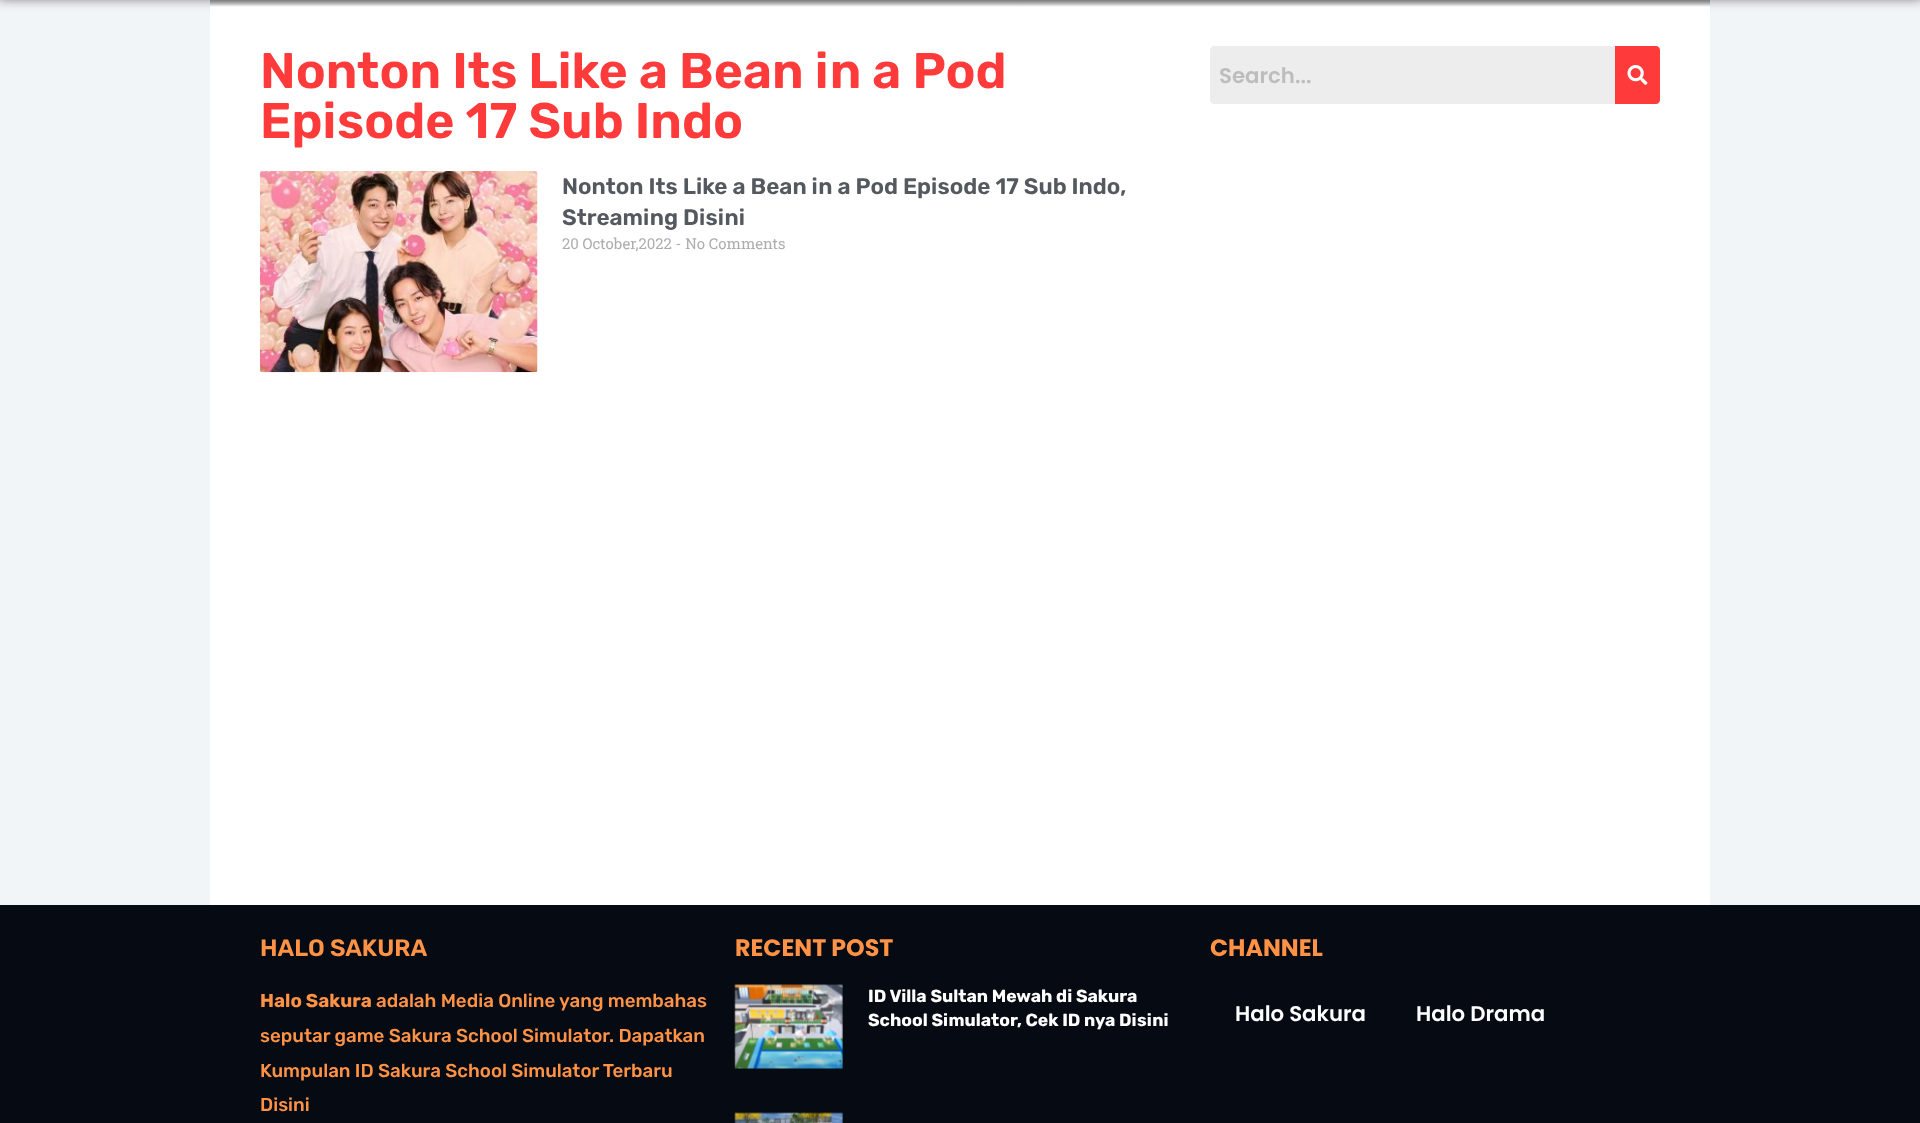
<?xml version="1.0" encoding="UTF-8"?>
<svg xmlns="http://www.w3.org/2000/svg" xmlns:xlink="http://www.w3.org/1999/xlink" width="1920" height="1123">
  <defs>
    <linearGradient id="g1" gradientUnits="userSpaceOnUse" x1="960" y1="-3.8" x2="960" y2="34"><stop offset="0" stop-color="#000000" stop-opacity="0.5" /><stop offset="0.28" stop-color="#ffffff" /></linearGradient>
  </defs>
  <rect width="100%" height="100%" fill="#f2f5f7" />
  <rect x="-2" y="-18" width="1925" height="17" fill="#000000" fill-opacity="0.5" filter="blur(6px)" />
  <rect x="210" width="1500" height="34" fill="url(#g1)" />
  <rect x="210" y="34" width="1500" height="871" fill="#ffffff" />
  <image x="260" y="171" width="278" height="202" xlink:href="image1.png" />
  <path d="M 1214 46 h 401 v 58 h -401 c -2 0 -4 -2 -4 -4 v -50 c 0 -2 2 -4 4 -4 z" fill="#ededed" />
  <path d="M 1615 46 h 41 c 2 0 4 2 4 4 v 50 c 0 2 -2 4 -4 4 h -41 z" fill="#ff3a3a" />
  <image x="1627" y="65" width="21" height="20" xlink:href="image2.png" />
  <rect y="905" width="1920" height="218" fill="#050a13" />
  <image x="734" y="984" width="109" height="85" xlink:href="image3.png" />
  <image x="734" y="1112" width="109" height="11" xlink:href="image4.png" />
  <text x="260" y="88" style="font-family: Rubik; font-size: 50px; font-weight: 600; fill: #ff3a3a">Nonton Its Like a Bean in a Pod</text>
  <text x="260" y="138" style="font-family: Rubik; font-size: 50px; font-weight: 600; fill: #ff3a3a">Episode 17 Sub Indo</text>
  <text x="562" y="194" style="font-family: Rubik; font-size: 22.5px; font-weight: 600; fill: #54595f">Nonton Its Like a Bean in a Pod Episode 17 Sub Indo,</text>
  <text x="562" y="225" style="font-family: Rubik; font-size: 22.5px; font-weight: 600; fill: #54595f">Streaming Disini</text>
  <text x="562" y="249" style="font-family: Roboto Slab; font-size: 15px; fill: #adadad">20 October,2022 - No Comments</text>
  <text x="1219" y="83" style="font-family: Poppins; font-size: 21.25px; font-weight: 600; fill: #bdbdbd">Search...</text>
  <text x="260" y="956" style="font-family: Rubik; font-size: 23.75px; font-weight: 600; fill: #ff9245">HALO SAKURA</text>
  <text x="260" y="1007" style="font-family: Rubik; font-size: 18.75px; font-weight: 300; fill: #ff9245">Halo Sakura</text>
  <text x="376" y="1007" style="font-family: Rubik; font-size: 18.75px; font-weight: 500; fill: #ff9245">adalah Media Online yang membahas</text>
  <text x="260" y="1042" style="font-family: Rubik; font-size: 18.75px; font-weight: 500; fill: #ff9245">seputar game Sakura School Simulator. Dapatkan</text>
  <text x="260" y="1077" style="font-family: Rubik; font-size: 18.75px; font-weight: 500; fill: #ff9245">Kumpulan ID Sakura School Simulator Terbaru</text>
  <text x="260" y="1111" style="font-family: Rubik; font-size: 18.75px; font-weight: 500; fill: #ff9245">Disini</text>
  <text x="735" y="956" style="font-family: Poppins; font-size: 23.75px; font-weight: bold; fill: #ff9245">RECENT POST</text>
  <text x="868" y="1002" style="font-family: Rubik; font-size: 17.5px; font-weight: 300; fill: #ffffff">ID Villa Sultan Mewah di Sakura</text>
  <text x="868" y="1026" style="font-family: Rubik; font-size: 17.5px; font-weight: 300; fill: #ffffff">School Simulator, Cek ID nya Disini</text>
  <text x="1210" y="956" style="font-family: Poppins; font-size: 23.75px; font-weight: bold; fill: #ff9245">CHANNEL</text>
  <text x="1235" y="1021" style="font-family: Poppins; font-size: 21.25px; font-weight: 600; fill: #ffffff">Halo Sakura</text>
  <text x="1416" y="1021" style="font-family: Poppins; font-size: 21.25px; font-weight: 600; fill: #ffffff">Halo Drama</text>
</svg>
